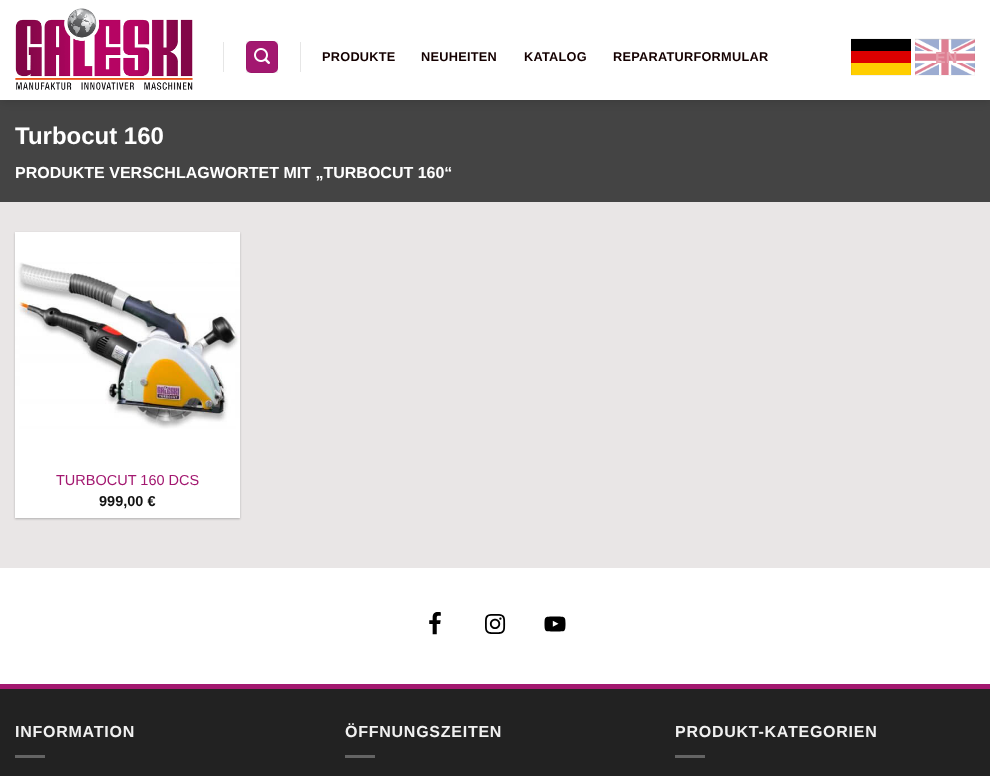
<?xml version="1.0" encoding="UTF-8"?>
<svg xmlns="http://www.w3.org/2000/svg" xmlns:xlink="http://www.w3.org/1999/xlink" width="990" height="776">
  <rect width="100%" height="100%" fill="#e9e6e6" />
  <rect y="100" width="990" height="102" fill="#444444" />
  <rect x="1" y="1" width="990" height="100" fill="#000000" fill-opacity="0.15" filter="blur(5px)" />
  <rect width="990" height="100" fill="#ffffff" />
  <image x="15" y="8" width="178" height="82" xlink:href="image1.png" />
  <rect x="223" y="42" width="1" height="30" fill="#e6e6e6" />
  <rect x="246" y="41" width="32" height="32" rx="5" fill="#a31870" />
  <rect x="246.5" y="41.5" width="31" height="31" fill="none" stroke="#000000" stroke-opacity="0.05" />
  <image x="254" y="48" width="16" height="16" xlink:href="image2.png" />
  <rect x="300" y="42" width="1" height="30" fill="#e6e6e6" />
  <image x="851" y="39" width="60" height="36" xlink:href="image3.png" />
  <rect x="851.5" y="38.5" width="59" height="37" fill="none" stroke="#000000" stroke-opacity="0.05" />
  <image x="915" y="39" width="60" height="36" xlink:href="image4.png" />
  <rect x="915.5" y="38.5" width="59" height="37" fill="none" stroke="#000000" stroke-opacity="0.03" />
  <rect x="15" y="233" width="225" height="286" fill="#000000" fill-opacity="0.24" filter="blur(1px)" />
  <rect x="15" y="232" width="225" height="286" fill="#ffffff" />
  <image x="15" y="262" width="225" height="167" xlink:href="image5.png" />
  <rect y="568" width="990" height="116" fill="#ffffff" />
  <image x="429" y="612" width="12" height="23" xlink:href="image6.png" />
  <image x="485" y="614" width="21" height="20" xlink:href="image7.png" />
  <image x="544" y="616" width="22" height="16" xlink:href="image8.png" />
  <rect y="689" width="990" height="87" fill="#222222" />
  <rect y="684" width="990" height="5" fill="#a31870" />
  <rect x="15" y="755" width="30" height="3" fill="#646464" />
  <rect x="345" y="755" width="30" height="3" fill="#646464" />
  <rect x="675" y="755" width="30" height="3" fill="#646464" />
  <text x="322" y="61" style="font-family: Liberation Sans; font-size: 12.75px; font-weight: bold; letter-spacing: 0.25px; fill: #140000">PRODUKTE</text>
  <text x="421" y="61" style="font-family: Liberation Sans; font-size: 12.75px; font-weight: bold; letter-spacing: 0.25px; fill: #140000">NEUHEITEN</text>
  <text x="524" y="61" style="font-family: Liberation Sans; font-size: 12.75px; font-weight: bold; letter-spacing: 0.25px; fill: #140000">KATALOG</text>
  <text x="613" y="61" style="font-family: Liberation Sans; font-size: 12.75px; font-weight: bold; letter-spacing: 0.25px; fill: #140000">REPARATURFORMULAR</text>
  <text x="935" y="63" style="font-family: Liberation Sans; font-size: 16px; font-weight: bold; fill: #e69dab">EN</text>
  <text x="15" y="144" style="font-family: Liberation Sans; font-size: 24px; font-weight: bold; fill: #ffffff">Turbocut 160</text>
  <text x="15" y="178" style="font-family: Liberation Sans; font-size: 16px; font-weight: bold; fill: #ffffff">PRODUKTE VERSCHLAGWORTET MIT „TURBOCUT 160“</text>
  <text x="56" y="485" style="font-family: Liberation Sans; font-size: 14.5px; fill: #a31870">TURBOCUT 160 DCS</text>
  <text x="99" y="506" style="font-family: Liberation Sans; font-size: 14.5px; font-weight: bold; fill: #111111">999,00 €</text>
  <text x="15" y="737" style="font-family: Liberation Sans; font-size: 16px; font-weight: bold; letter-spacing: 0.75px; fill: #f1f1f1">INFORMATION</text>
  <text x="345" y="737" style="font-family: Liberation Sans; font-size: 16px; font-weight: bold; letter-spacing: 0.75px; fill: #f1f1f1">ÖFFNUNGSZEITEN</text>
  <text x="675" y="737" style="font-family: Liberation Sans; font-size: 16px; font-weight: bold; letter-spacing: 0.75px; fill: #f1f1f1">PRODUKT-KATEGORIEN</text>
</svg>
